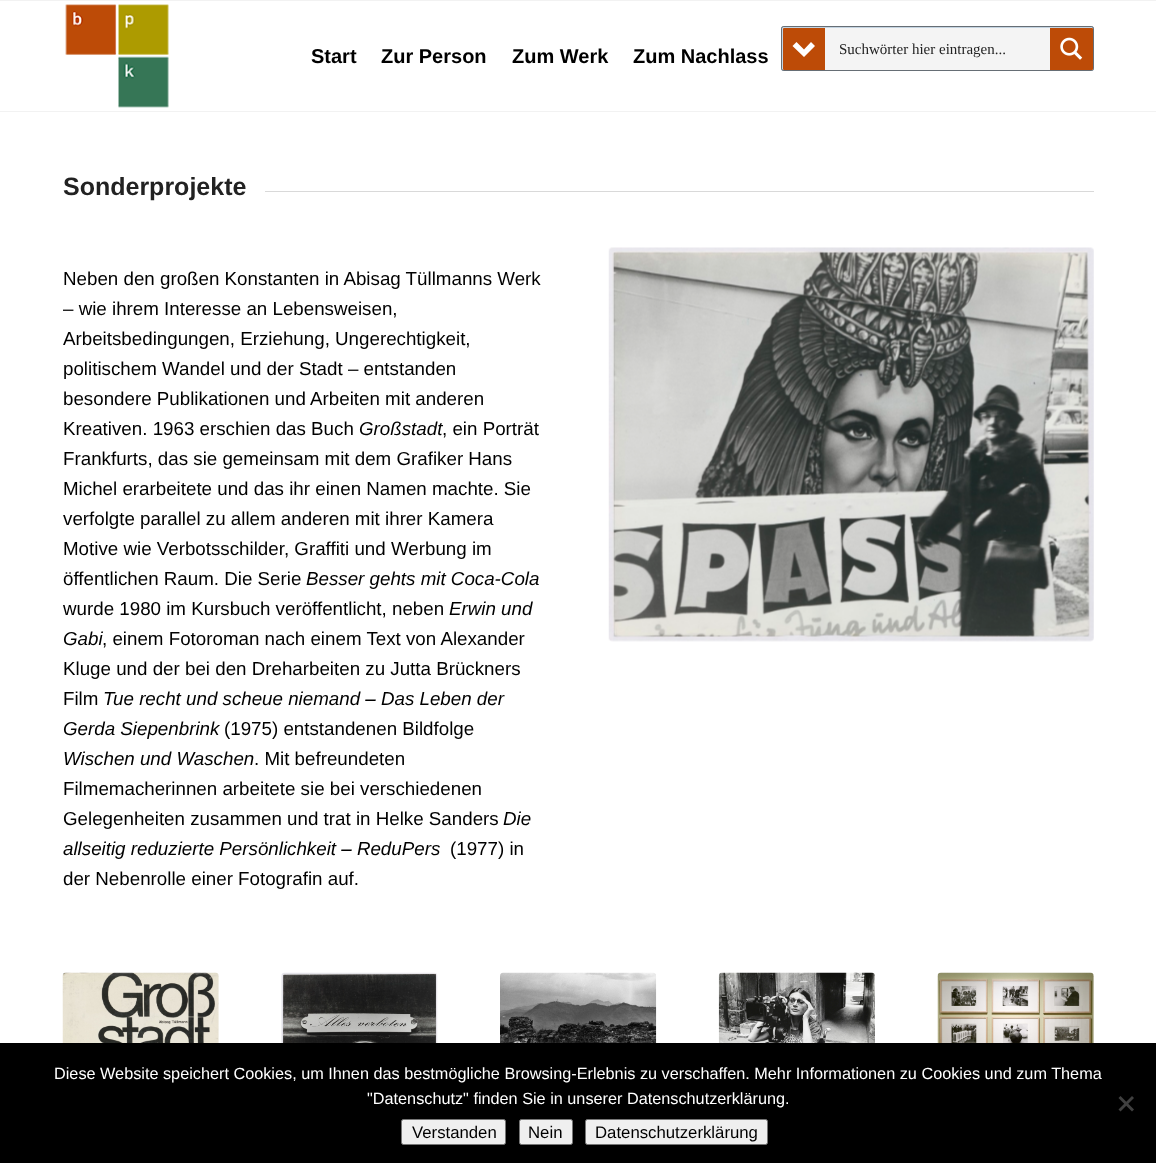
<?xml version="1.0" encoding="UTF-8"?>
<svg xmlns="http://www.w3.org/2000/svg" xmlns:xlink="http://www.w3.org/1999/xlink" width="1156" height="1163">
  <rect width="100%" height="100%" fill="#ffffff" />
  <rect width="1156" height="1" fill="#f2f2f2" />
  <rect y="111" width="1156" height="1" fill="#f2f2f2" />
  <image x="65" y="4" width="104" height="104" xlink:href="image1.png" />
  <rect x="781" y="26" width="313" height="45" rx="2.5" fill="#d1eaff" />
  <rect x="781" y="26" width="313" height="45" rx="2.5" fill="#b1b1b1" fill-opacity="0.38" />
  <rect x="781.5" y="26.5" width="312" height="44" rx="2" fill="none" stroke="#000000" stroke-opacity="0.48" />
  <rect x="783" y="28" width="310" height="42" rx="1" fill="#ffffff" />
  <rect x="783" y="28" width="310" height="42" fill="#838687" fill-opacity="0.09" />
  <path d="M 784 28 h 41 v 42 h -41 c -0.5 0 -1 -0.5 -1 -1 v -40 c 0 -0.5 0.5 -1 1 -1 z" fill="#bd4b07" />
  <path d="M 792.5 46 l 4 -4 l 7.5 7.5 l 7 -7.5 l 4 4 l -11 11 z" fill="#ffffff" />
  <path d="M 1050 28 h 42 c 0.5 0 1 0.5 1 1 v 40 c 0 0.5 -0.5 1 -1 1 h -42 z" fill="#bd4b07" />
  <image x="1060" y="37" width="23" height="23" xlink:href="image2.png" />
  <rect x="265" y="191" width="829" height="1" fill="#d9d9d9" />
  <image x="608" y="247" width="486" height="395" xlink:href="image3.png" />
  <image x="62" y="972" width="157" height="71" xlink:href="image4.png" />
  <image x="281" y="972" width="157" height="71" xlink:href="image5.png" />
  <image x="500" y="972" width="157" height="71" xlink:href="image6.png" />
  <image x="718" y="972" width="157" height="71" xlink:href="image7.png" />
  <image x="937" y="972" width="157" height="71" xlink:href="image8.png" />
  <rect y="1043" width="1156" height="120" fill="#000000" />
  <path d="M 1132 1096 l 2 2 l -13.5 13.5 l -2 -2 z" fill="#404040" />
  <path d="M 1118.5 1098 l 2 -2 l 13.5 13.5 l -2 2 z" fill="#404040" />
  <rect x="401.5" y="1119.5" width="104" height="25" rx="2" fill="#efefef" stroke="#767676" />
  <rect x="519.5" y="1119.5" width="53" height="25" rx="2" fill="#efefef" stroke="#767676" />
  <rect x="585.5" y="1119.5" width="182" height="25" rx="2" fill="#efefef" stroke="#767676" />
  <text x="311" y="63" style="font-family: Liberation Sans; font-size: 20px; font-weight: bold; fill: #000000">Start</text>
  <text x="381" y="63" style="font-family: Liberation Sans; font-size: 20px; font-weight: bold; fill: #000000">Zur Person</text>
  <text x="512" y="63" style="font-family: Liberation Sans; font-size: 20px; font-weight: bold; fill: #000000">Zum Werk</text>
  <text x="633" y="63" style="font-family: Liberation Sans; font-size: 20px; font-weight: bold; fill: #000000">Zum Nachlass</text>
  <text x="839" y="54" style="font-family: Liberation Serif; font-size: 15px; fill: #222222">Suchwörter hier eintragen...</text>
  <text x="63" y="195" style="font-family: Liberation Sans; font-size: 25px; font-weight: bold; fill: #222222">Sonderprojekte</text>
  <text x="63" y="285" style="font-family: Liberation Sans; font-size: 18.75px; fill: #000000">Neben den großen Konstanten in Abisag Tüllmanns Werk</text>
  <text x="63" y="315" style="font-family: Liberation Sans; font-size: 18.75px; fill: #000000">– wie ihrem Interesse an Lebensweisen,</text>
  <text x="63" y="345" style="font-family: Liberation Sans; font-size: 18.75px; fill: #000000">Arbeitsbedingungen, Erziehung, Ungerechtigkeit,</text>
  <text x="63" y="375" style="font-family: Liberation Sans; font-size: 18.75px; fill: #000000">politischem Wandel und der Stadt – entstanden</text>
  <text x="63" y="405" style="font-family: Liberation Sans; font-size: 18.75px; fill: #000000">besondere Publikationen und Arbeiten mit anderen</text>
  <text x="63" y="435" style="font-family: Liberation Sans; font-size: 18.75px; fill: #000000">Kreativen. 1963 erschien das Buch</text>
  <text x="359" y="435" style="font-family: Liberation Sans; font-size: 18.75px; font-style: italic; fill: #000000">Großstadt</text>
  <text x="442" y="435" style="font-family: Liberation Sans; font-size: 18.75px; fill: #000000">, ein Porträt</text>
  <text x="63" y="465" style="font-family: Liberation Sans; font-size: 18.75px; fill: #000000">Frankfurts, das sie gemeinsam mit dem Grafiker Hans</text>
  <text x="63" y="495" style="font-family: Liberation Sans; font-size: 18.75px; fill: #000000">Michel erarbeitete und das ihr einen Namen machte. Sie</text>
  <text x="63" y="525" style="font-family: Liberation Sans; font-size: 18.75px; fill: #000000">verfolgte parallel zu allem anderen mit ihrer Kamera</text>
  <text x="63" y="555" style="font-family: Liberation Sans; font-size: 18.75px; fill: #000000">Motive wie Verbotsschilder, Graffiti und Werbung im</text>
  <text x="63" y="585" style="font-family: Liberation Sans; font-size: 18.75px; fill: #000000">öffentlichen Raum. Die Serie</text>
  <text x="306" y="585" style="font-family: Liberation Sans; font-size: 18.75px; font-style: italic; fill: #000000">Besser gehts mit Coca-Cola</text>
  <text x="63" y="615" style="font-family: Liberation Sans; font-size: 18.75px; fill: #000000">wurde 1980 im Kursbuch veröffentlicht, neben</text>
  <text x="449" y="615" style="font-family: Liberation Sans; font-size: 18.75px; font-style: italic; fill: #000000">Erwin und</text>
  <text x="63" y="645" style="font-family: Liberation Sans; font-size: 18.75px; font-style: italic; fill: #000000">Gabi</text>
  <text x="102" y="645" style="font-family: Liberation Sans; font-size: 18.75px; fill: #000000">, einem Fotoroman nach einem Text von Alexander</text>
  <text x="63" y="675" style="font-family: Liberation Sans; font-size: 18.75px; fill: #000000">Kluge und der bei den Dreharbeiten zu Jutta Brückners</text>
  <text x="63" y="705" style="font-family: Liberation Sans; font-size: 18.75px; fill: #000000">Film</text>
  <text x="103" y="705" style="font-family: Liberation Sans; font-size: 18.75px; font-style: italic; fill: #000000">Tue recht und scheue niemand – Das Leben der</text>
  <text x="63" y="735" style="font-family: Liberation Sans; font-size: 18.75px; font-style: italic; fill: #000000">Gerda Siepenbrink</text>
  <text x="224" y="735" style="font-family: Liberation Sans; font-size: 18.75px; fill: #000000">(1975) entstandenen Bildfolge</text>
  <text x="63" y="765" style="font-family: Liberation Sans; font-size: 18.75px; font-style: italic; fill: #000000">Wischen und Waschen</text>
  <text x="254" y="765" style="font-family: Liberation Sans; font-size: 18.75px; fill: #000000">. Mit befreundeten</text>
  <text x="63" y="795" style="font-family: Liberation Sans; font-size: 18.75px; fill: #000000">Filmemacherinnen arbeitete sie bei verschiedenen</text>
  <text x="63" y="825" style="font-family: Liberation Sans; font-size: 18.75px; fill: #000000">Gelegenheiten zusammen und trat in Helke Sanders</text>
  <text x="503" y="825" style="font-family: Liberation Sans; font-size: 18.75px; font-style: italic; fill: #000000">Die</text>
  <text x="63" y="855" style="font-family: Liberation Sans; font-size: 18.75px; font-style: italic; fill: #000000">allseitig reduzierte Persönlichkeit – ReduPers</text>
  <text x="450" y="855" style="font-family: Liberation Sans; font-size: 18.75px; fill: #000000">(1977) in</text>
  <text x="63" y="885" style="font-family: Liberation Sans; font-size: 18.75px; fill: #000000">der Nebenrolle einer Fotografin auf.</text>
  <text x="54" y="1079" style="font-family: Liberation Sans; font-size: 16.25px; fill: #ffffff">Diese Website speichert Cookies, um Ihnen das bestmögliche Browsing-Erlebnis zu verschaffen. Mehr Informationen zu Cookies und zum Thema</text>
  <text x="367" y="1104" style="font-family: Liberation Sans; font-size: 16.25px; fill: #ffffff">"Datenschutz" finden Sie in unserer Datenschutzerklärung.</text>
  <text x="412" y="1138" style="font-family: Liberation Sans; font-size: 16.75px; fill: #000000">Verstanden</text>
  <text x="528" y="1138" style="font-family: Liberation Sans; font-size: 16.75px; fill: #000000">Nein</text>
  <text x="595" y="1138" style="font-family: Liberation Sans; font-size: 16.75px; fill: #000000">Datenschutzerklärung</text>
</svg>
